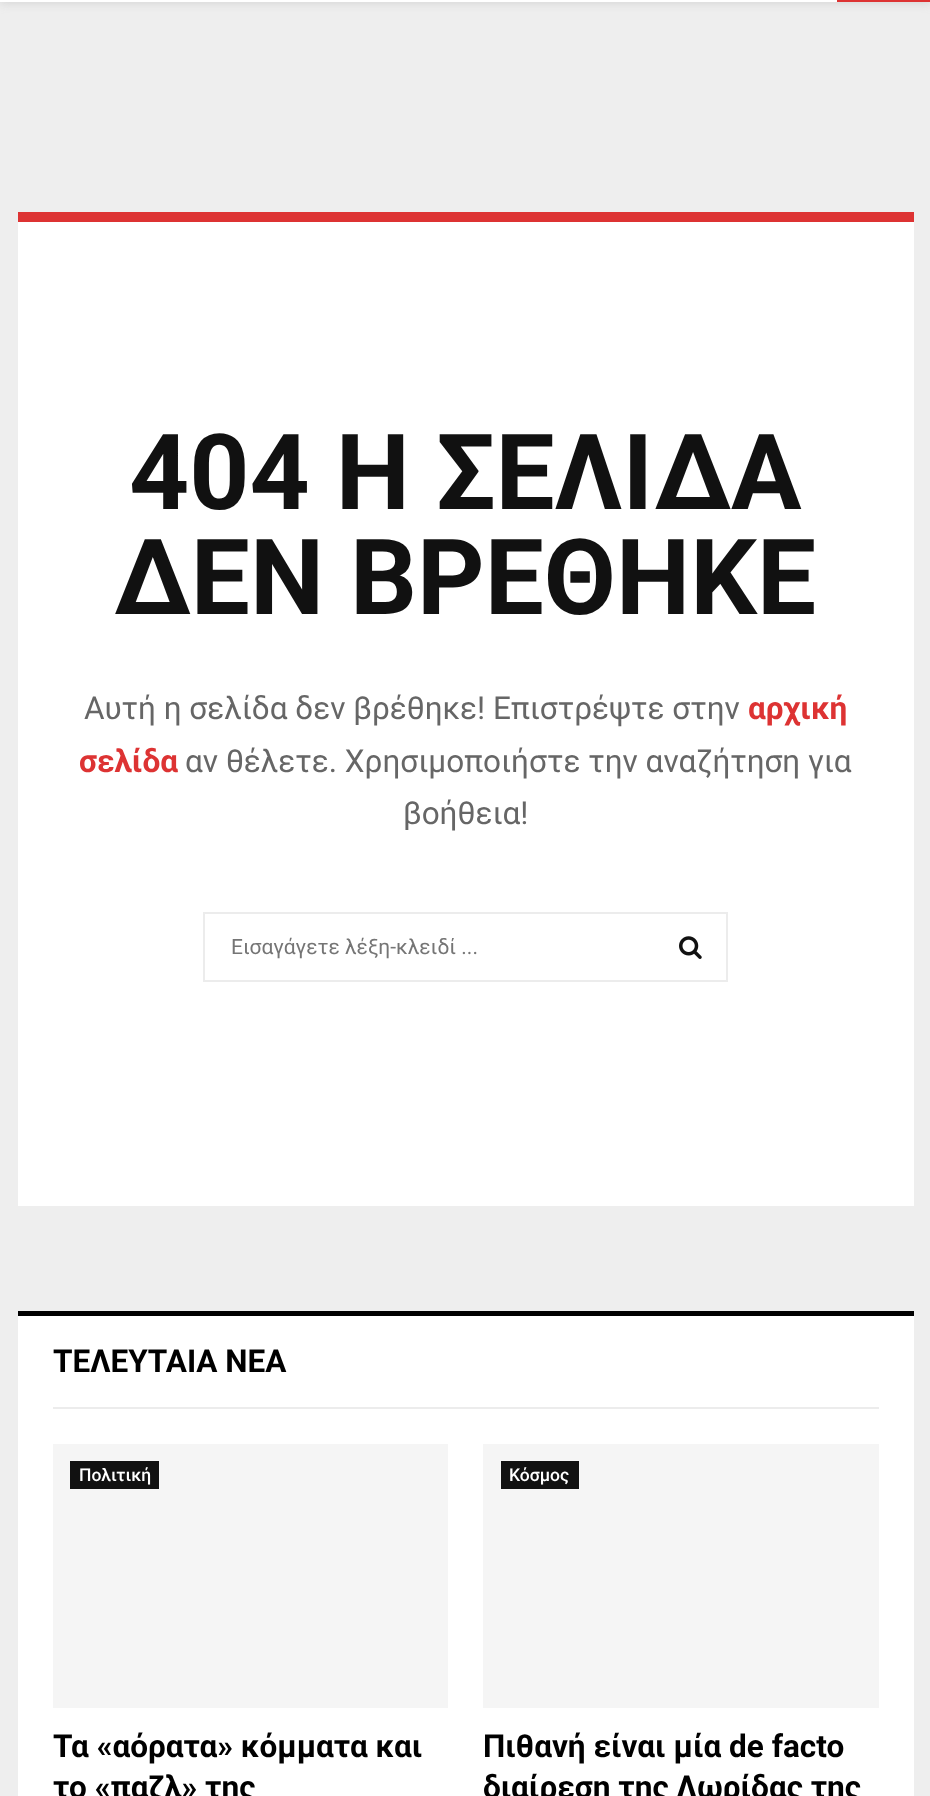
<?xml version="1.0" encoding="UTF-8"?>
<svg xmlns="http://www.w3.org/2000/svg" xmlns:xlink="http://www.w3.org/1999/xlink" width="930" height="1796">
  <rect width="100%" height="100%" fill="#eeeeee" />
  <rect y="-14" width="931" height="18" fill="#bebebe" fill-opacity="0.46" filter="blur(4.5px)" />
  <rect width="837" height="2" fill="#ffffff" />
  <rect x="837" width="93" height="2" fill="#dd3333" />
  <rect x="18" y="222" width="896" height="984" fill="#ffffff" />
  <rect x="18" y="212" width="896" height="10" fill="#dd3333" />
  <rect x="204" y="913" width="523" height="68" fill="none" stroke="#ececec" stroke-width="2" />
  <image x="679" y="936" width="23" height="23" xlink:href="image1.png" />
  <rect x="18" y="1316" width="896" height="480" fill="#ffffff" />
  <rect x="53" y="1407" width="826" height="2" fill="#ececec" />
  <rect x="18" y="1311" width="896" height="5" fill="#000000" />
  <rect x="53" y="1444" width="395" height="264" fill="#f5f5f5" />
  <rect x="70" y="1461" width="89" height="28" fill="#111111" />
  <rect x="483" y="1444" width="396" height="264" fill="#f5f5f5" />
  <rect x="501" y="1461" width="78" height="28" fill="#111111" />
  <text x="129" y="509" style="font-family: Roboto; font-size: 105px; font-weight: bold; fill: #111111">404 Η ΣΕΛΙΔΑ</text>
  <text x="114" y="614" style="font-family: Roboto; font-size: 105px; font-weight: bold; fill: #111111">ΔΕΝ ΒΡΕΘΗΚΕ</text>
  <text x="84" y="719" style="font-family: Roboto; font-size: 31.5px; fill: #666666">Αυτή η σελίδα δεν βρέθηκε! Επιστρέψτε στην</text>
  <text x="748" y="719" style="font-family: Roboto; font-size: 31.5px; font-weight: bold; fill: #dd3333">αρχική</text>
  <text x="79" y="772" style="font-family: Roboto; font-size: 31.5px; font-weight: bold; fill: #dd3333">σελίδα</text>
  <text x="185" y="772" style="font-family: Roboto; font-size: 31.5px; fill: #666666">αν θέλετε. Χρησιμοποιήστε την αναζήτηση για</text>
  <text x="403" y="824" style="font-family: Roboto; font-size: 31.5px; fill: #666666">βοήθεια!</text>
  <text x="231" y="954" style="font-family: Roboto; font-size: 21px; fill: #757575">Εισαγάγετε λέξη-κλειδί ...</text>
  <text x="53" y="1372" style="font-family: Roboto; font-size: 31.5px; font-weight: bold; fill: #000000">ΤΕΛΕΥΤΑΙΑ ΝΕΑ</text>
  <text x="79" y="1481" style="font-family: Roboto; font-size: 17.5px; font-weight: 500; fill: #ffffff">Πολιτική</text>
  <text x="53" y="1757" style="font-family: Roboto; font-size: 31.5px; font-weight: bold; fill: #000000">Τα «αόρατα» κόμματα και</text>
  <text x="53" y="1798" style="font-family: Roboto; font-size: 31.5px; font-weight: bold; fill: #000000">το «παζλ» της</text>
  <text x="509" y="1481" style="font-family: Roboto; font-size: 17.5px; font-weight: 500; fill: #ffffff">Κόσμος</text>
  <text x="483" y="1757" style="font-family: Roboto; font-size: 31.5px; font-weight: bold; fill: #000000">Πιθανή είναι μία de facto</text>
  <text x="483" y="1798" style="font-family: Roboto; font-size: 31.5px; font-weight: bold; fill: #000000">διαίρεση της Λωρίδας της</text>
</svg>
